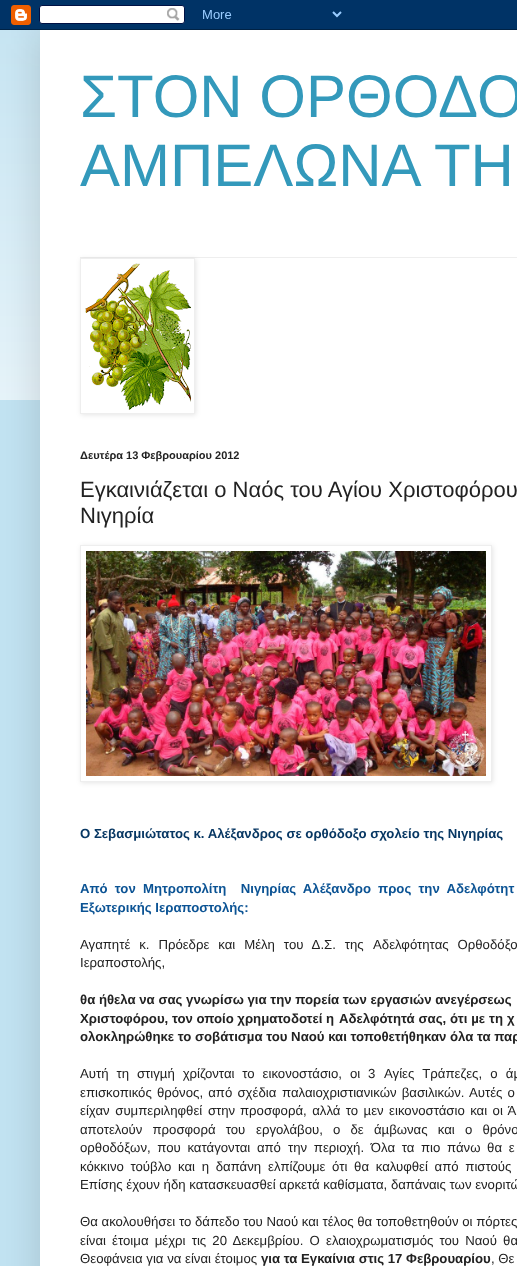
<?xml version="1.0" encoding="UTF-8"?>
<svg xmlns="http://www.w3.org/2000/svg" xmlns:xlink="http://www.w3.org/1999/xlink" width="517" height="1266">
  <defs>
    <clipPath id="clip1"><path d="M 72 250 h 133 v 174 h -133 z m 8 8 h 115 v 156 h -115 z" clip-rule="evenodd" /></clipPath>
    <clipPath id="clip2"><path d="M 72 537 h 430 v 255 h -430 z m 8 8 h 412 v 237 h -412 z" clip-rule="evenodd" /></clipPath>
  </defs>
  <rect width="100%" height="100%" fill="#c2e3f2" />
  <image x="0" y="30" width="40" height="370" xlink:href="image2.png" />
  <rect x="40" y="30" width="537" height="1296" fill="#000000" fill-opacity="0.15" filter="blur(20px)" />
  <image x="0" y="0" width="517" height="30" xlink:href="image1.png" />
  <rect x="40" y="30" width="477" height="1236" fill="#ffffff" />
  <rect x="80" y="257" width="437" height="1" fill="#eeeeee" />
  <g clip-path="url(#clip1)">
    <rect x="81" y="259" width="115" height="156" fill="#000000" fill-opacity="0.1" filter="blur(2.5px)" />
  </g>
  <rect x="80.5" y="258.5" width="114" height="155" fill="none" stroke="#eeeeee" />
  <image x="85" y="263" width="106" height="147" xlink:href="image3.png" />
  <g clip-path="url(#clip2)">
    <rect x="81" y="546" width="412" height="237" fill="#000000" fill-opacity="0.1" filter="blur(2.5px)" />
  </g>
  <rect x="80.5" y="545.5" width="411" height="236" fill="none" stroke="#eeeeee" />
  <image x="86" y="551" width="400" height="225" xlink:href="image4.png" />
  <text x="80" y="117" style="font-family: Liberation Sans; font-size: 60px; fill: #3399bb">ΣΤΟΝ ΟΡΘΟΔΟ</text>
  <text x="80" y="186" style="font-family: Liberation Sans; font-size: 60px; fill: #3399bb">ΑΜΠΕΛΩΝΑ ΤΗ</text>
  <text x="80" y="459" style="font-family: Liberation Sans; font-size: 11px; font-weight: bold; fill: #222222">Δευτέρα 13 Φεβρουαρίου 2012</text>
  <text x="80" y="497" style="font-family: Liberation Sans; font-size: 22px; fill: #222222">Εγκαινιάζεται ο Ναός του Αγίου Χριστοφόρου</text>
  <text x="80" y="523" style="font-family: Liberation Sans; font-size: 22px; fill: #222222">Νιγηρία</text>
  <text x="80" y="838" style="font-family: Liberation Sans; font-size: 13.2px; font-weight: bold; fill: #073763">Ο Σεβασμιώτατος κ. Αλέξανδρος σε ορθόδοξο σχολείο της Νιγηρίας</text>
  <text x="80" y="893" word-spacing="3.5" style="font-family: Liberation Sans; font-size: 13.2px; font-weight: bold; fill: #0b5394" xml:space="preserve">Από τον Μητροπολίτη  Νιγηρίας Αλέξανδρο προς την Αδελφότητ</text>
  <text x="80" y="912" style="font-family: Liberation Sans; font-size: 13.2px; font-weight: bold; fill: #0b5394">Εξωτερικής Ιεραποστολής:</text>
  <text x="80" y="949" word-spacing="5.25" style="font-family: Liberation Sans; font-size: 13.2px; fill: #222222">Αγαπητέ κ. Πρόεδρε και Μέλη του Δ.Σ. της</text>
  <text x="373" y="949" word-spacing="5.25" style="font-family: Liberation Sans; font-size: 13.2px; fill: #222222">Αδελφότητας Ορθοδόξο</text>
  <text x="80" y="967" style="font-family: Liberation Sans; font-size: 13.2px; fill: #222222">Ιεραποστολής,</text>
  <text x="80" y="1004" style="font-family: Liberation Sans; font-size: 13.2px; font-weight: bold; fill: #222222">θα ήθελα να σας γνωρίσω για την πορεία των εργασιών ανεγέρσεως</text>
  <text x="80" y="1023" style="font-family: Liberation Sans; font-size: 13.2px; font-weight: bold; fill: #222222">Χριστοφόρου, τον οποίο χρηματοδοτεί η</text>
  <text x="339" y="1023" word-spacing="0.25" style="font-family: Liberation Sans; font-size: 13.2px; font-weight: bold; fill: #222222">Αδελφότητά σας, ότι µε τη χ</text>
  <text x="80" y="1041" style="font-family: Liberation Sans; font-size: 13.2px; font-weight: bold; fill: #222222">ολοκληρώθηκε το σοβάτισµα του Ναού και τοποθετήθηκαν όλα τα παρ</text>
  <text x="80" y="1078" word-spacing="4.25" style="font-family: Liberation Sans; font-size: 13.2px; fill: #222222">Αυτή τη στιγµή χρίζονται το εικονοστάσιο, οι 3</text>
  <text x="384" y="1078" word-spacing="4.5" style="font-family: Liberation Sans; font-size: 13.2px; fill: #222222">Αγίες Τράπεζες, ο άµ</text>
  <text x="80" y="1097" word-spacing="1.5" style="font-family: Liberation Sans; font-size: 13.2px; fill: #222222">επισκοπικός θρόνος, από σχέδια</text>
  <text x="282" y="1097" word-spacing="1.5" style="font-family: Liberation Sans; font-size: 13.2px; fill: #222222">παλαιοχριστιανικών βασιλικών. Αυτές ο</text>
  <text x="80" y="1115" word-spacing="2" style="font-family: Liberation Sans; font-size: 13.2px; fill: #222222">είχαν συμπεριληφθεί στην</text>
  <text x="240" y="1115" word-spacing="1.75" style="font-family: Liberation Sans; font-size: 13.2px; fill: #222222">προσφορά, αλλά το µεν εικονοστάσιο και οι Ά</text>
  <text x="80" y="1134" word-spacing="6.5" style="font-family: Liberation Sans; font-size: 13.2px; fill: #222222">αποτελούν προσφορά του</text>
  <text x="256" y="1134" word-spacing="6.5" style="font-family: Liberation Sans; font-size: 13.2px; fill: #222222">εργολάβου, ο δε άµβωνας και ο θρόνο</text>
  <text x="80" y="1152" word-spacing="3" style="font-family: Liberation Sans; font-size: 13.2px; fill: #222222">ορθοδόξων, που κατάγονται από</text>
  <text x="288" y="1152" word-spacing="3" style="font-family: Liberation Sans; font-size: 13.2px; fill: #222222">την περιοχή. Όλα τα πιο πάνω θα ε</text>
  <text x="80" y="1171" word-spacing="3" style="font-family: Liberation Sans; font-size: 13.2px; fill: #222222">κόκκινο τούβλο και η δαπάνη</text>
  <text x="268" y="1171" word-spacing="3" style="font-family: Liberation Sans; font-size: 13.2px; fill: #222222">ελπίζουμε ότι θα καλυφθεί από πιστούς</text>
  <text x="80" y="1189" style="font-family: Liberation Sans; font-size: 13.2px; fill: #222222">Επίσης έχουν ήδη κατασκευασθεί αρκετά καθίσµατα, δαπάναις των ενοριτώ</text>
  <text x="80" y="1226" style="font-family: Liberation Sans; font-size: 13.2px; fill: #222222">Θα ακολουθήσει το δάπεδο του Ναού και τέλος θα τοποθετηθούν οι πόρτες</text>
  <text x="80" y="1245" word-spacing="2.5" style="font-family: Liberation Sans; font-size: 13.2px; fill: #222222">είναι έτοιμα μέχρι τις 20 Δεκεμβρίου. Ο</text>
  <text x="326" y="1245" word-spacing="2.5" style="font-family: Liberation Sans; font-size: 13.2px; fill: #222222">ελαιοχρωματισμός του Ναού θα</text>
  <text x="80" y="1263" style="font-family: Liberation Sans; font-size: 13.2px; fill: #222222">Θεοφάνεια για να είναι έτοιμος</text>
  <text x="261" y="1263" style="font-family: Liberation Sans; font-size: 13.2px; font-weight: bold; fill: #222222">για τα Εγκαίνια στις 17 Φεβρουαρίου</text>
  <text x="491" y="1263" style="font-family: Liberation Sans; font-size: 13.2px; fill: #222222">, Θε</text>
</svg>
